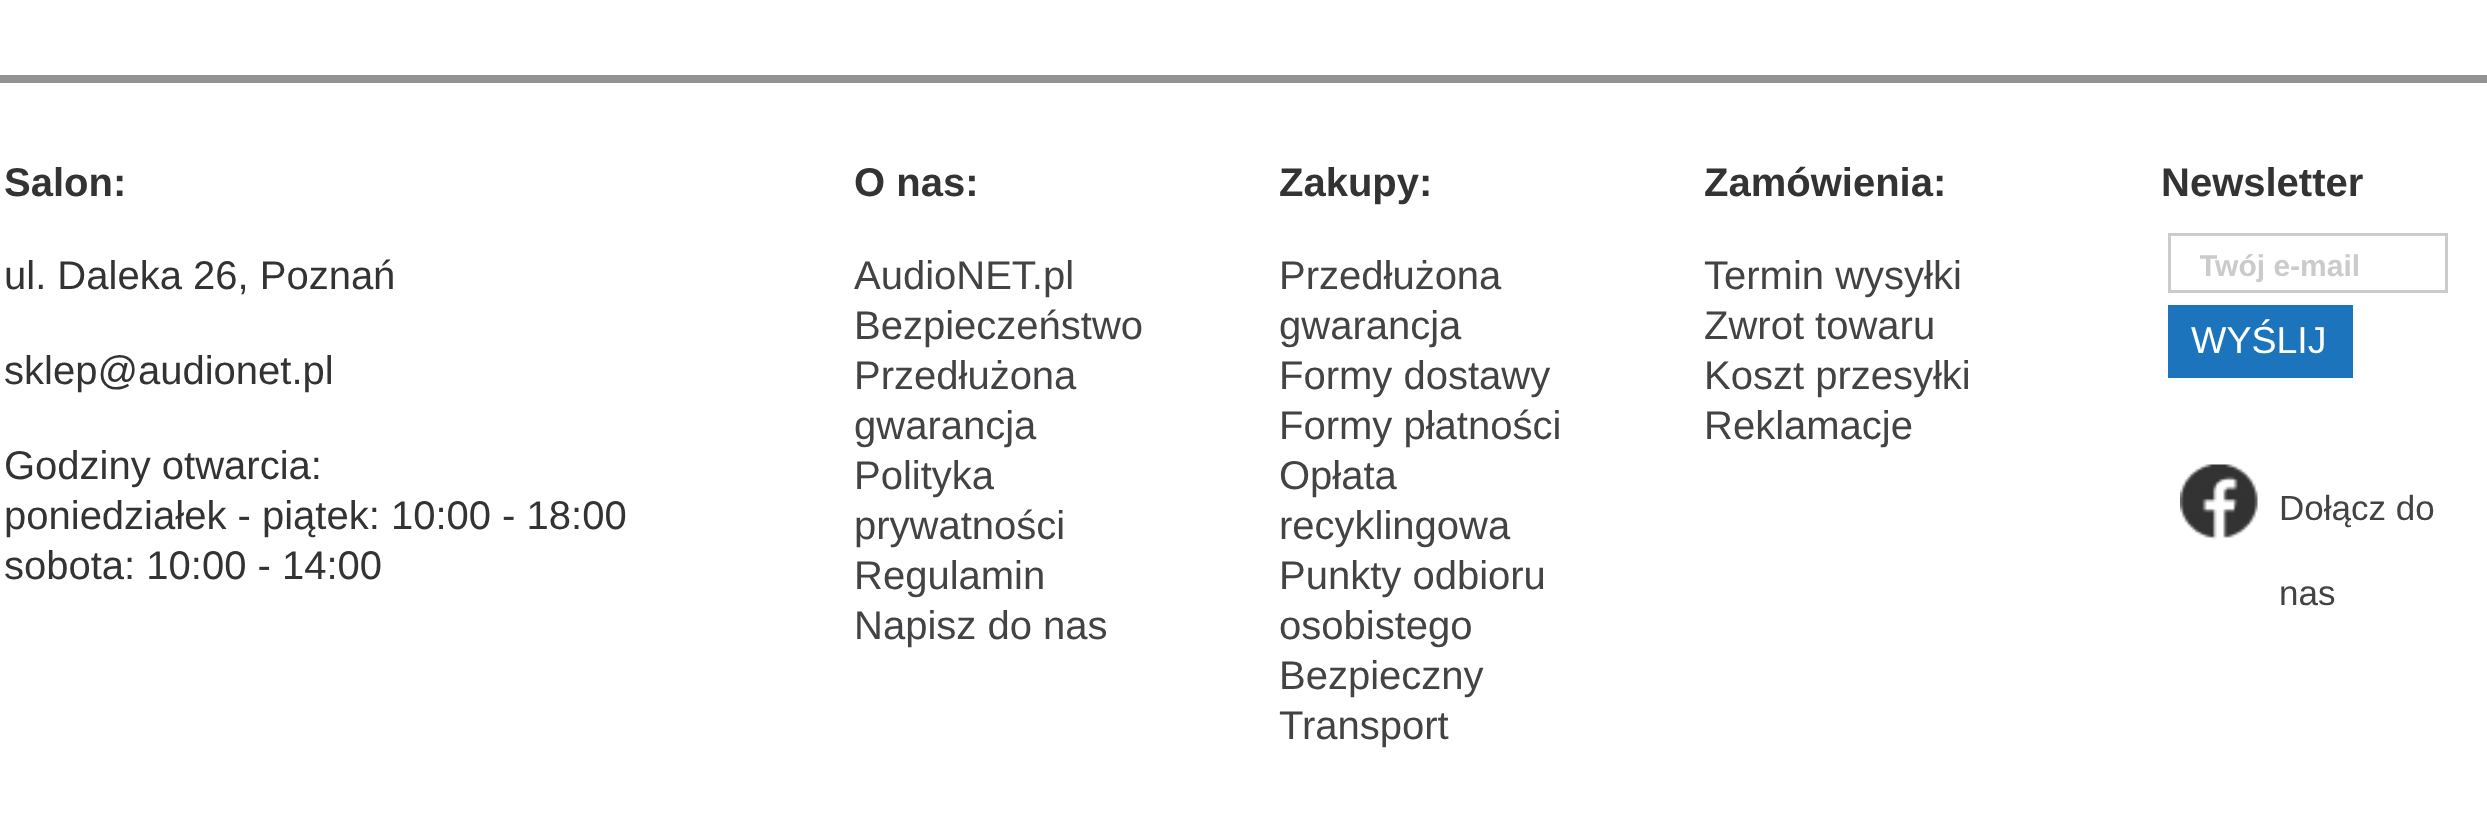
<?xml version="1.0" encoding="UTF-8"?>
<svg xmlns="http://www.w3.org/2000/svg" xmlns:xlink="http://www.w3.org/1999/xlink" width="2487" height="823">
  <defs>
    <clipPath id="clip1"><rect x="2200" y="248" width="185" height="35" /></clipPath>
  </defs>
  <rect width="100%" height="100%" fill="#ffffff" />
  <rect y="75" width="2487" height="8" fill="#919395" />
  <rect x="2169.5" y="234.5" width="277" height="57" fill="none" stroke="#cbcbcc" stroke-width="3" />
  <rect x="2168" y="305" width="185" height="73" fill="#1c75bc" />
  <image x="2180" y="464" width="78" height="76" xlink:href="image1.png" />
  <text x="4" y="196" style="font-family: Liberation Sans; font-size: 40px; font-weight: bold; fill: #333333">Salon:</text>
  <text x="4" y="289" style="font-family: Liberation Sans; font-size: 40px; fill: #333333">ul. Daleka 26, Poznań</text>
  <text x="4" y="384" style="font-family: Liberation Sans; font-size: 40px; fill: #333333">sklep@audionet.pl</text>
  <text x="4" y="479" style="font-family: Liberation Sans; font-size: 40px; fill: #333333">Godziny otwarcia:</text>
  <text x="4" y="529" style="font-family: Liberation Sans; font-size: 40px; fill: #333333">poniedziałek - piątek: 10:00 - 18:00</text>
  <text x="4" y="579" style="font-family: Liberation Sans; font-size: 40px; fill: #333333">sobota: 10:00 - 14:00</text>
  <text x="854" y="196" style="font-family: Liberation Sans; font-size: 40px; font-weight: bold; fill: #333333">O nas:</text>
  <text x="854" y="289" style="font-family: Liberation Sans; font-size: 40px; fill: #434244">AudioNET.pl</text>
  <text x="854" y="339" style="font-family: Liberation Sans; font-size: 40px; fill: #434244">Bezpieczeństwo</text>
  <text x="854" y="389" style="font-family: Liberation Sans; font-size: 40px; fill: #434244">Przedłużona</text>
  <text x="854" y="439" style="font-family: Liberation Sans; font-size: 40px; fill: #434244">gwarancja</text>
  <text x="854" y="489" style="font-family: Liberation Sans; font-size: 40px; fill: #434244">Polityka</text>
  <text x="854" y="539" style="font-family: Liberation Sans; font-size: 40px; fill: #434244">prywatności</text>
  <text x="854" y="589" style="font-family: Liberation Sans; font-size: 40px; fill: #434244">Regulamin</text>
  <text x="854" y="639" style="font-family: Liberation Sans; font-size: 40px; fill: #434244">Napisz do nas</text>
  <text x="1279" y="196" style="font-family: Liberation Sans; font-size: 40px; font-weight: bold; fill: #333333">Zakupy:</text>
  <text x="1279" y="289" style="font-family: Liberation Sans; font-size: 40px; fill: #434244">Przedłużona</text>
  <text x="1279" y="339" style="font-family: Liberation Sans; font-size: 40px; fill: #434244">gwarancja</text>
  <text x="1279" y="389" style="font-family: Liberation Sans; font-size: 40px; fill: #434244">Formy dostawy</text>
  <text x="1279" y="439" style="font-family: Liberation Sans; font-size: 40px; fill: #434244">Formy płatności</text>
  <text x="1279" y="489" style="font-family: Liberation Sans; font-size: 40px; fill: #434244">Opłata</text>
  <text x="1279" y="539" style="font-family: Liberation Sans; font-size: 40px; fill: #434244">recyklingowa</text>
  <text x="1279" y="589" style="font-family: Liberation Sans; font-size: 40px; fill: #434244">Punkty odbioru</text>
  <text x="1279" y="639" style="font-family: Liberation Sans; font-size: 40px; fill: #434244">osobistego</text>
  <text x="1279" y="689" style="font-family: Liberation Sans; font-size: 40px; fill: #434244">Bezpieczny</text>
  <text x="1279" y="739" style="font-family: Liberation Sans; font-size: 40px; fill: #434244">Transport</text>
  <text x="1704" y="196" style="font-family: Liberation Sans; font-size: 40px; font-weight: bold; fill: #333333">Zamówienia:</text>
  <text x="1704" y="289" style="font-family: Liberation Sans; font-size: 40px; fill: #434244">Termin wysyłki</text>
  <text x="1704" y="339" style="font-family: Liberation Sans; font-size: 40px; fill: #434244">Zwrot towaru</text>
  <text x="1704" y="389" style="font-family: Liberation Sans; font-size: 40px; fill: #434244">Koszt przesyłki</text>
  <text x="1704" y="439" style="font-family: Liberation Sans; font-size: 40px; fill: #434244">Reklamacje</text>
  <text x="2161" y="196" style="font-family: Liberation Sans; font-size: 40px; font-weight: bold; fill: #333333">Newsletter</text>
  <g clip-path="url(#clip1)">
    <text x="2199" y="276" style="font-family: Liberation Sans; font-size: 30px; font-weight: bold; fill: #cbcbcc">Twój e-mail</text>
  </g>
  <text x="2191" y="353" style="font-family: Liberation Sans; font-size: 37.5px; fill: #ffffff">WYŚLIJ</text>
  <text x="2279" y="520" style="font-family: Liberation Sans; font-size: 35px; fill: #434244">Dołącz do</text>
  <text x="2279" y="605" style="font-family: Liberation Sans; font-size: 35px; fill: #434244">nas</text>
</svg>
